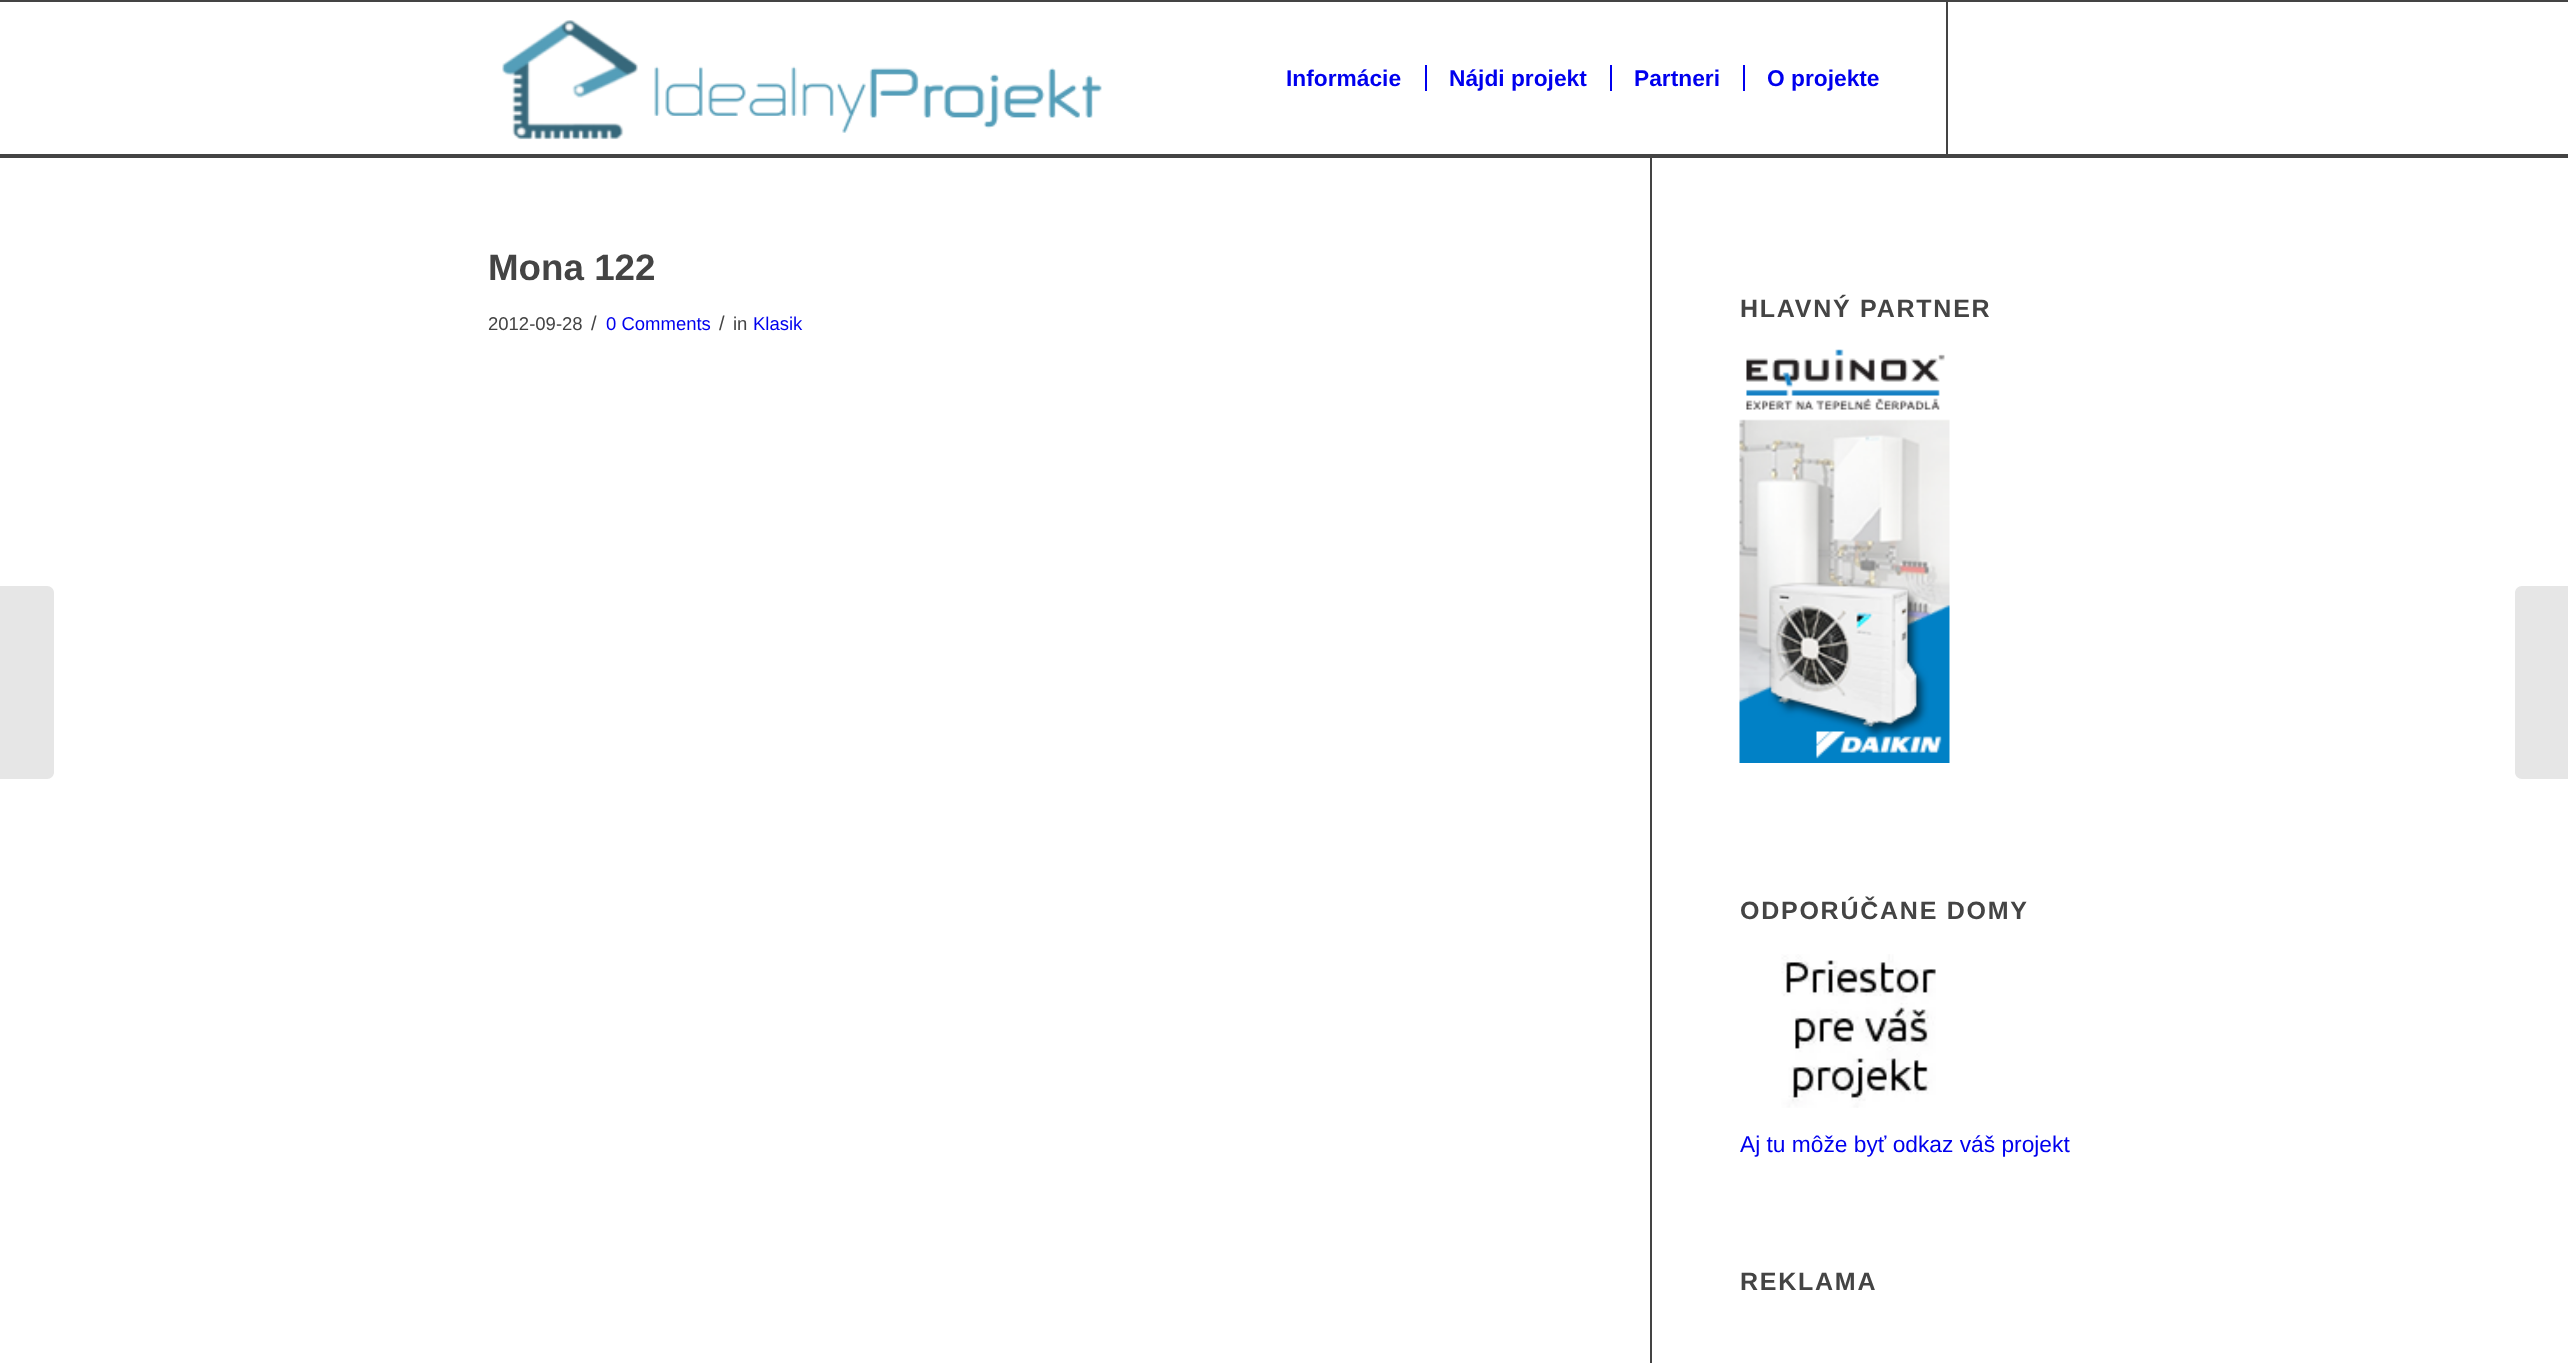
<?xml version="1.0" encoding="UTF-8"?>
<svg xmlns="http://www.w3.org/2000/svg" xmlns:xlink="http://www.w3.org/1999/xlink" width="2568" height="1363">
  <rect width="100%" height="100%" fill="#ffffff" />
  <rect width="2568" height="2" fill="#444444" />
  <rect x="1650" y="156" width="2" height="1207" fill="#444444" />
  <rect y="156" width="2568" height="2" fill="#444444" />
  <image x="502" y="20" width="600" height="120" xlink:href="image1.png" />
  <rect y="154" width="2568" height="2" fill="#444444" />
  <rect x="1946" y="2" width="2" height="154" fill="#444444" />
  <rect x="1425" y="65" width="2" height="26" fill="#0000ee" />
  <rect x="1610" y="65" width="2" height="26" fill="#0000ee" />
  <rect x="1743" y="65" width="2" height="26" fill="#0000ee" />
  <path d="M 0 586 h 47 c 4 0 7 3 7 7 v 179 c 0 4 -3 7 -7 7 h -47 z" fill="#e6e6e6" />
  <image x="1739" y="349" width="211" height="414" xlink:href="image2.png" />
  <image x="1781" y="954" width="155" height="154" xlink:href="image3.png" />
  <path d="M 2522 586 h 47 v 193 h -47 c -4 0 -7 -3 -7 -7 v -179 c 0 -4 3 -7 7 -7 z" fill="#e6e6e6" />
  <text x="1286" y="86" style="font-family: Liberation Sans; font-size: 22.75px; font-weight: bold; fill: #0000ee">Informácie</text>
  <text x="1449" y="86" style="font-family: Liberation Sans; font-size: 22.75px; font-weight: bold; fill: #0000ee">Nájdi projekt</text>
  <text x="1634" y="86" style="font-family: Liberation Sans; font-size: 22.75px; font-weight: bold; fill: #0000ee">Partneri</text>
  <text x="1767" y="86" style="font-family: Liberation Sans; font-size: 22.75px; font-weight: bold; fill: #0000ee">O projekte</text>
  <text x="488" y="280" style="font-family: Liberation Sans; font-size: 36.75px; font-weight: bold; fill: #444444">Mona 122</text>
  <text x="488" y="330" style="font-family: Liberation Sans; font-size: 18.5px; fill: #444444">2012-09-28</text>
  <text x="591" y="330" style="font-family: Liberation Sans; font-size: 20px; fill: #444444">/</text>
  <text x="606" y="330" style="font-family: Liberation Sans; font-size: 18.5px; fill: #0000ee">0 Comments</text>
  <text x="719" y="330" style="font-family: Liberation Sans; font-size: 20px; fill: #444444">/</text>
  <text x="733" y="330" style="font-family: Liberation Sans; font-size: 18.5px; fill: #444444">in</text>
  <text x="753" y="330" style="font-family: Liberation Sans; font-size: 18.5px; fill: #0000ee">Klasik</text>
  <text x="1740" y="317" style="font-family: Liberation Sans; font-size: 25px; font-weight: bold; letter-spacing: 1.75px; fill: #444444">HLAVNÝ PARTNER</text>
  <text x="1740" y="919" style="font-family: Liberation Sans; font-size: 25px; font-weight: bold; letter-spacing: 1.75px; fill: #444444">ODPORÚČANE DOMY</text>
  <text x="1740" y="1152" style="font-family: Liberation Sans; font-size: 22.75px; fill: #0000ee">Aj tu môže byť odkaz váš projekt</text>
  <text x="1740" y="1290" style="font-family: Liberation Sans; font-size: 25px; font-weight: bold; letter-spacing: 1.75px; fill: #444444">REKLAMA</text>
</svg>
